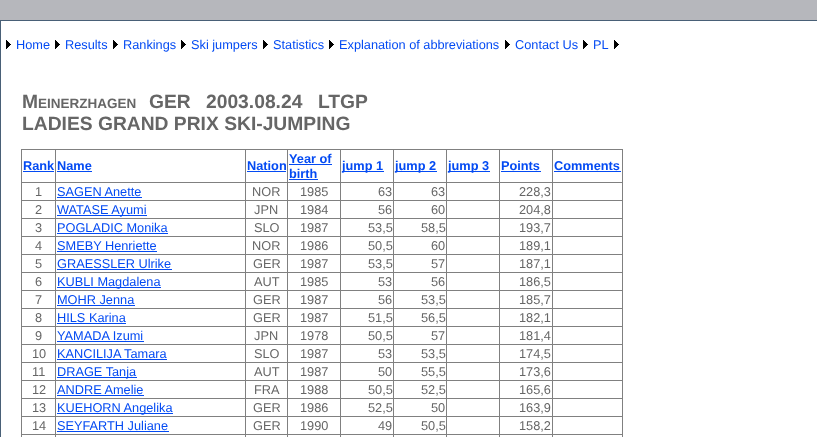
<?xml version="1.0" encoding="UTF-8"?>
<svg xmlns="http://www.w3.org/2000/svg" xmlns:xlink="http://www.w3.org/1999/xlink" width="817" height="437">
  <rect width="100%" height="100%" fill="#b6b7bc" />
  <rect x="1" y="52" width="816" height="385" fill="#ffffff" />
  <rect x="0.5" y="20.5" width="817" height="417" fill="none" stroke="#496077" />
  <rect x="1" y="21" width="816" height="31" fill="#ffffff" />
  <image x="6" y="40" width="5" height="9" xlink:href="image1.png" />
  <image x="55" y="40" width="5" height="9" xlink:href="image1.png" />
  <image x="113" y="40" width="5" height="9" xlink:href="image1.png" />
  <image x="181" y="40" width="5" height="9" xlink:href="image1.png" />
  <image x="263" y="40" width="5" height="9" xlink:href="image1.png" />
  <image x="329" y="40" width="5" height="9" xlink:href="image1.png" />
  <image x="505" y="40" width="5" height="9" xlink:href="image1.png" />
  <image x="583" y="40" width="5" height="9" xlink:href="image1.png" />
  <image x="614" y="40" width="5" height="9" xlink:href="image1.png" />
  <rect x="21" y="149" width="602" height="1" fill="#808080" />
  <rect x="622" y="149" width="1" height="288" fill="#808080" />
  <rect x="21" y="149" width="1" height="288" fill="#808080" />
  <rect x="23" y="171" width="31" height="1" fill="#034af3" />
  <rect x="552" y="182" width="71" height="1" fill="#808080" />
  <rect x="552" y="200" width="71" height="1" fill="#808080" />
  <rect x="552" y="218" width="71" height="1" fill="#808080" />
  <rect x="552" y="236" width="71" height="1" fill="#808080" />
  <rect x="552" y="254" width="71" height="1" fill="#808080" />
  <rect x="552" y="272" width="71" height="1" fill="#808080" />
  <rect x="552" y="290" width="71" height="1" fill="#808080" />
  <rect x="552" y="308" width="71" height="1" fill="#808080" />
  <rect x="552" y="326" width="71" height="1" fill="#808080" />
  <rect x="552" y="344" width="71" height="1" fill="#808080" />
  <rect x="552" y="362" width="71" height="1" fill="#808080" />
  <rect x="552" y="380" width="71" height="1" fill="#808080" />
  <rect x="552" y="398" width="71" height="1" fill="#808080" />
  <rect x="552" y="416" width="71" height="1" fill="#808080" />
  <rect x="552" y="434" width="71" height="1" fill="#808080" />
  <rect x="552" y="434" width="1" height="3" fill="#808080" />
  <rect x="499" y="434" width="54" height="1" fill="#808080" />
  <rect x="552" y="416" width="1" height="19" fill="#808080" />
  <rect x="499" y="416" width="54" height="1" fill="#808080" />
  <rect x="552" y="398" width="1" height="19" fill="#808080" />
  <rect x="499" y="398" width="54" height="1" fill="#808080" />
  <rect x="552" y="380" width="1" height="19" fill="#808080" />
  <rect x="499" y="380" width="54" height="1" fill="#808080" />
  <rect x="552" y="362" width="1" height="19" fill="#808080" />
  <rect x="499" y="362" width="54" height="1" fill="#808080" />
  <rect x="552" y="344" width="1" height="19" fill="#808080" />
  <rect x="499" y="344" width="54" height="1" fill="#808080" />
  <rect x="552" y="326" width="1" height="19" fill="#808080" />
  <rect x="499" y="326" width="54" height="1" fill="#808080" />
  <rect x="552" y="308" width="1" height="19" fill="#808080" />
  <rect x="499" y="308" width="54" height="1" fill="#808080" />
  <rect x="552" y="290" width="1" height="19" fill="#808080" />
  <rect x="499" y="290" width="54" height="1" fill="#808080" />
  <rect x="552" y="272" width="1" height="19" fill="#808080" />
  <rect x="499" y="272" width="54" height="1" fill="#808080" />
  <rect x="552" y="254" width="1" height="19" fill="#808080" />
  <rect x="499" y="254" width="54" height="1" fill="#808080" />
  <rect x="552" y="236" width="1" height="19" fill="#808080" />
  <rect x="499" y="236" width="54" height="1" fill="#808080" />
  <rect x="552" y="218" width="1" height="19" fill="#808080" />
  <rect x="499" y="218" width="54" height="1" fill="#808080" />
  <rect x="552" y="200" width="1" height="19" fill="#808080" />
  <rect x="499" y="200" width="54" height="1" fill="#808080" />
  <rect x="552" y="182" width="1" height="19" fill="#808080" />
  <rect x="499" y="182" width="54" height="1" fill="#808080" />
  <rect x="499" y="434" width="1" height="3" fill="#808080" />
  <rect x="446" y="434" width="54" height="1" fill="#808080" />
  <rect x="499" y="416" width="1" height="19" fill="#808080" />
  <rect x="446" y="416" width="54" height="1" fill="#808080" />
  <rect x="499" y="398" width="1" height="19" fill="#808080" />
  <rect x="446" y="398" width="54" height="1" fill="#808080" />
  <rect x="499" y="380" width="1" height="19" fill="#808080" />
  <rect x="446" y="380" width="54" height="1" fill="#808080" />
  <rect x="499" y="362" width="1" height="19" fill="#808080" />
  <rect x="446" y="362" width="54" height="1" fill="#808080" />
  <rect x="499" y="344" width="1" height="19" fill="#808080" />
  <rect x="446" y="344" width="54" height="1" fill="#808080" />
  <rect x="499" y="326" width="1" height="19" fill="#808080" />
  <rect x="446" y="326" width="54" height="1" fill="#808080" />
  <rect x="499" y="308" width="1" height="19" fill="#808080" />
  <rect x="446" y="308" width="54" height="1" fill="#808080" />
  <rect x="499" y="290" width="1" height="19" fill="#808080" />
  <rect x="446" y="290" width="54" height="1" fill="#808080" />
  <rect x="499" y="272" width="1" height="19" fill="#808080" />
  <rect x="446" y="272" width="54" height="1" fill="#808080" />
  <rect x="499" y="254" width="1" height="19" fill="#808080" />
  <rect x="446" y="254" width="54" height="1" fill="#808080" />
  <rect x="499" y="236" width="1" height="19" fill="#808080" />
  <rect x="446" y="236" width="54" height="1" fill="#808080" />
  <rect x="499" y="218" width="1" height="19" fill="#808080" />
  <rect x="446" y="218" width="54" height="1" fill="#808080" />
  <rect x="499" y="200" width="1" height="19" fill="#808080" />
  <rect x="446" y="200" width="54" height="1" fill="#808080" />
  <rect x="499" y="182" width="1" height="19" fill="#808080" />
  <rect x="446" y="182" width="54" height="1" fill="#808080" />
  <rect x="446" y="434" width="1" height="3" fill="#808080" />
  <rect x="393" y="434" width="54" height="1" fill="#808080" />
  <rect x="446" y="416" width="1" height="19" fill="#808080" />
  <rect x="393" y="416" width="54" height="1" fill="#808080" />
  <rect x="446" y="398" width="1" height="19" fill="#808080" />
  <rect x="393" y="398" width="54" height="1" fill="#808080" />
  <rect x="446" y="380" width="1" height="19" fill="#808080" />
  <rect x="393" y="380" width="54" height="1" fill="#808080" />
  <rect x="446" y="362" width="1" height="19" fill="#808080" />
  <rect x="393" y="362" width="54" height="1" fill="#808080" />
  <rect x="446" y="344" width="1" height="19" fill="#808080" />
  <rect x="393" y="344" width="54" height="1" fill="#808080" />
  <rect x="446" y="326" width="1" height="19" fill="#808080" />
  <rect x="393" y="326" width="54" height="1" fill="#808080" />
  <rect x="446" y="308" width="1" height="19" fill="#808080" />
  <rect x="393" y="308" width="54" height="1" fill="#808080" />
  <rect x="446" y="290" width="1" height="19" fill="#808080" />
  <rect x="393" y="290" width="54" height="1" fill="#808080" />
  <rect x="446" y="272" width="1" height="19" fill="#808080" />
  <rect x="393" y="272" width="54" height="1" fill="#808080" />
  <rect x="446" y="254" width="1" height="19" fill="#808080" />
  <rect x="393" y="254" width="54" height="1" fill="#808080" />
  <rect x="446" y="236" width="1" height="19" fill="#808080" />
  <rect x="393" y="236" width="54" height="1" fill="#808080" />
  <rect x="446" y="218" width="1" height="19" fill="#808080" />
  <rect x="393" y="218" width="54" height="1" fill="#808080" />
  <rect x="446" y="200" width="1" height="19" fill="#808080" />
  <rect x="393" y="200" width="54" height="1" fill="#808080" />
  <rect x="446" y="182" width="1" height="19" fill="#808080" />
  <rect x="393" y="182" width="54" height="1" fill="#808080" />
  <rect x="393" y="434" width="1" height="3" fill="#808080" />
  <rect x="340" y="434" width="54" height="1" fill="#808080" />
  <rect x="393" y="416" width="1" height="19" fill="#808080" />
  <rect x="340" y="416" width="54" height="1" fill="#808080" />
  <rect x="393" y="398" width="1" height="19" fill="#808080" />
  <rect x="340" y="398" width="54" height="1" fill="#808080" />
  <rect x="393" y="380" width="1" height="19" fill="#808080" />
  <rect x="340" y="380" width="54" height="1" fill="#808080" />
  <rect x="393" y="362" width="1" height="19" fill="#808080" />
  <rect x="340" y="362" width="54" height="1" fill="#808080" />
  <rect x="393" y="344" width="1" height="19" fill="#808080" />
  <rect x="340" y="344" width="54" height="1" fill="#808080" />
  <rect x="393" y="326" width="1" height="19" fill="#808080" />
  <rect x="340" y="326" width="54" height="1" fill="#808080" />
  <rect x="393" y="308" width="1" height="19" fill="#808080" />
  <rect x="340" y="308" width="54" height="1" fill="#808080" />
  <rect x="393" y="290" width="1" height="19" fill="#808080" />
  <rect x="340" y="290" width="54" height="1" fill="#808080" />
  <rect x="393" y="272" width="1" height="19" fill="#808080" />
  <rect x="340" y="272" width="54" height="1" fill="#808080" />
  <rect x="393" y="254" width="1" height="19" fill="#808080" />
  <rect x="340" y="254" width="54" height="1" fill="#808080" />
  <rect x="393" y="236" width="1" height="19" fill="#808080" />
  <rect x="340" y="236" width="54" height="1" fill="#808080" />
  <rect x="393" y="218" width="1" height="19" fill="#808080" />
  <rect x="340" y="218" width="54" height="1" fill="#808080" />
  <rect x="393" y="200" width="1" height="19" fill="#808080" />
  <rect x="340" y="200" width="54" height="1" fill="#808080" />
  <rect x="393" y="182" width="1" height="19" fill="#808080" />
  <rect x="340" y="182" width="54" height="1" fill="#808080" />
  <rect x="340" y="434" width="1" height="3" fill="#808080" />
  <rect x="287" y="434" width="54" height="1" fill="#808080" />
  <rect x="340" y="416" width="1" height="19" fill="#808080" />
  <rect x="287" y="416" width="54" height="1" fill="#808080" />
  <rect x="340" y="398" width="1" height="19" fill="#808080" />
  <rect x="287" y="398" width="54" height="1" fill="#808080" />
  <rect x="340" y="380" width="1" height="19" fill="#808080" />
  <rect x="287" y="380" width="54" height="1" fill="#808080" />
  <rect x="340" y="362" width="1" height="19" fill="#808080" />
  <rect x="287" y="362" width="54" height="1" fill="#808080" />
  <rect x="340" y="344" width="1" height="19" fill="#808080" />
  <rect x="287" y="344" width="54" height="1" fill="#808080" />
  <rect x="340" y="326" width="1" height="19" fill="#808080" />
  <rect x="287" y="326" width="54" height="1" fill="#808080" />
  <rect x="340" y="308" width="1" height="19" fill="#808080" />
  <rect x="287" y="308" width="54" height="1" fill="#808080" />
  <rect x="340" y="290" width="1" height="19" fill="#808080" />
  <rect x="287" y="290" width="54" height="1" fill="#808080" />
  <rect x="340" y="272" width="1" height="19" fill="#808080" />
  <rect x="287" y="272" width="54" height="1" fill="#808080" />
  <rect x="340" y="254" width="1" height="19" fill="#808080" />
  <rect x="287" y="254" width="54" height="1" fill="#808080" />
  <rect x="340" y="236" width="1" height="19" fill="#808080" />
  <rect x="287" y="236" width="54" height="1" fill="#808080" />
  <rect x="340" y="218" width="1" height="19" fill="#808080" />
  <rect x="287" y="218" width="54" height="1" fill="#808080" />
  <rect x="340" y="200" width="1" height="19" fill="#808080" />
  <rect x="287" y="200" width="54" height="1" fill="#808080" />
  <rect x="340" y="182" width="1" height="19" fill="#808080" />
  <rect x="287" y="182" width="54" height="1" fill="#808080" />
  <rect x="287" y="434" width="1" height="3" fill="#808080" />
  <rect x="245" y="434" width="43" height="1" fill="#808080" />
  <rect x="287" y="416" width="1" height="19" fill="#808080" />
  <rect x="245" y="416" width="43" height="1" fill="#808080" />
  <rect x="287" y="398" width="1" height="19" fill="#808080" />
  <rect x="245" y="398" width="43" height="1" fill="#808080" />
  <rect x="287" y="380" width="1" height="19" fill="#808080" />
  <rect x="245" y="380" width="43" height="1" fill="#808080" />
  <rect x="287" y="362" width="1" height="19" fill="#808080" />
  <rect x="245" y="362" width="43" height="1" fill="#808080" />
  <rect x="287" y="344" width="1" height="19" fill="#808080" />
  <rect x="245" y="344" width="43" height="1" fill="#808080" />
  <rect x="287" y="326" width="1" height="19" fill="#808080" />
  <rect x="245" y="326" width="43" height="1" fill="#808080" />
  <rect x="287" y="308" width="1" height="19" fill="#808080" />
  <rect x="245" y="308" width="43" height="1" fill="#808080" />
  <rect x="287" y="290" width="1" height="19" fill="#808080" />
  <rect x="245" y="290" width="43" height="1" fill="#808080" />
  <rect x="287" y="272" width="1" height="19" fill="#808080" />
  <rect x="245" y="272" width="43" height="1" fill="#808080" />
  <rect x="287" y="254" width="1" height="19" fill="#808080" />
  <rect x="245" y="254" width="43" height="1" fill="#808080" />
  <rect x="287" y="236" width="1" height="19" fill="#808080" />
  <rect x="245" y="236" width="43" height="1" fill="#808080" />
  <rect x="287" y="218" width="1" height="19" fill="#808080" />
  <rect x="245" y="218" width="43" height="1" fill="#808080" />
  <rect x="287" y="200" width="1" height="19" fill="#808080" />
  <rect x="245" y="200" width="43" height="1" fill="#808080" />
  <rect x="287" y="182" width="1" height="19" fill="#808080" />
  <rect x="245" y="182" width="43" height="1" fill="#808080" />
  <rect x="245" y="434" width="1" height="3" fill="#808080" />
  <rect x="55" y="434" width="191" height="1" fill="#808080" />
  <rect x="245" y="416" width="1" height="19" fill="#808080" />
  <rect x="55" y="416" width="191" height="1" fill="#808080" />
  <rect x="245" y="398" width="1" height="19" fill="#808080" />
  <rect x="55" y="398" width="191" height="1" fill="#808080" />
  <rect x="245" y="380" width="1" height="19" fill="#808080" />
  <rect x="55" y="380" width="191" height="1" fill="#808080" />
  <rect x="245" y="362" width="1" height="19" fill="#808080" />
  <rect x="55" y="362" width="191" height="1" fill="#808080" />
  <rect x="245" y="344" width="1" height="19" fill="#808080" />
  <rect x="55" y="344" width="191" height="1" fill="#808080" />
  <rect x="245" y="326" width="1" height="19" fill="#808080" />
  <rect x="55" y="326" width="191" height="1" fill="#808080" />
  <rect x="245" y="308" width="1" height="19" fill="#808080" />
  <rect x="55" y="308" width="191" height="1" fill="#808080" />
  <rect x="245" y="290" width="1" height="19" fill="#808080" />
  <rect x="55" y="290" width="191" height="1" fill="#808080" />
  <rect x="245" y="272" width="1" height="19" fill="#808080" />
  <rect x="55" y="272" width="191" height="1" fill="#808080" />
  <rect x="245" y="254" width="1" height="19" fill="#808080" />
  <rect x="55" y="254" width="191" height="1" fill="#808080" />
  <rect x="245" y="236" width="1" height="19" fill="#808080" />
  <rect x="55" y="236" width="191" height="1" fill="#808080" />
  <rect x="245" y="218" width="1" height="19" fill="#808080" />
  <rect x="55" y="218" width="191" height="1" fill="#808080" />
  <rect x="245" y="200" width="1" height="19" fill="#808080" />
  <rect x="55" y="200" width="191" height="1" fill="#808080" />
  <rect x="245" y="182" width="1" height="19" fill="#808080" />
  <rect x="55" y="182" width="191" height="1" fill="#808080" />
  <rect x="55" y="434" width="1" height="3" fill="#808080" />
  <rect x="21" y="434" width="35" height="1" fill="#808080" />
  <rect x="55" y="416" width="1" height="19" fill="#808080" />
  <rect x="21" y="416" width="35" height="1" fill="#808080" />
  <rect x="55" y="398" width="1" height="19" fill="#808080" />
  <rect x="21" y="398" width="35" height="1" fill="#808080" />
  <rect x="55" y="380" width="1" height="19" fill="#808080" />
  <rect x="21" y="380" width="35" height="1" fill="#808080" />
  <rect x="55" y="362" width="1" height="19" fill="#808080" />
  <rect x="21" y="362" width="35" height="1" fill="#808080" />
  <rect x="55" y="344" width="1" height="19" fill="#808080" />
  <rect x="21" y="344" width="35" height="1" fill="#808080" />
  <rect x="55" y="326" width="1" height="19" fill="#808080" />
  <rect x="21" y="326" width="35" height="1" fill="#808080" />
  <rect x="55" y="308" width="1" height="19" fill="#808080" />
  <rect x="21" y="308" width="35" height="1" fill="#808080" />
  <rect x="55" y="290" width="1" height="19" fill="#808080" />
  <rect x="21" y="290" width="35" height="1" fill="#808080" />
  <rect x="55" y="272" width="1" height="19" fill="#808080" />
  <rect x="21" y="272" width="35" height="1" fill="#808080" />
  <rect x="55" y="254" width="1" height="19" fill="#808080" />
  <rect x="21" y="254" width="35" height="1" fill="#808080" />
  <rect x="55" y="236" width="1" height="19" fill="#808080" />
  <rect x="21" y="236" width="35" height="1" fill="#808080" />
  <rect x="55" y="218" width="1" height="19" fill="#808080" />
  <rect x="21" y="218" width="35" height="1" fill="#808080" />
  <rect x="55" y="200" width="1" height="19" fill="#808080" />
  <rect x="21" y="200" width="35" height="1" fill="#808080" />
  <rect x="55" y="182" width="1" height="19" fill="#808080" />
  <rect x="21" y="182" width="35" height="1" fill="#808080" />
  <rect x="55" y="149" width="1" height="34" fill="#808080" />
  <rect x="57" y="171" width="35" height="1" fill="#034af3" />
  <rect x="245" y="149" width="1" height="34" fill="#808080" />
  <rect x="247" y="171" width="39" height="1" fill="#034af3" />
  <rect x="287" y="149" width="1" height="34" fill="#808080" />
  <rect x="289" y="164" width="43" height="1" fill="#034af3" />
  <rect x="289" y="179" width="29" height="1" fill="#034af3" />
  <rect x="340" y="149" width="1" height="34" fill="#808080" />
  <rect x="342" y="171" width="42" height="1" fill="#034af3" />
  <rect x="393" y="149" width="1" height="34" fill="#808080" />
  <rect x="395" y="171" width="42" height="1" fill="#034af3" />
  <rect x="446" y="149" width="1" height="34" fill="#808080" />
  <rect x="448" y="171" width="42" height="1" fill="#034af3" />
  <rect x="499" y="149" width="1" height="34" fill="#808080" />
  <rect x="501" y="171" width="40" height="1" fill="#034af3" />
  <rect x="552" y="149" width="1" height="34" fill="#808080" />
  <rect x="554" y="171" width="67" height="1" fill="#034af3" />
  <rect x="57" y="197" width="85" height="1" fill="#034af3" />
  <rect x="57" y="215" width="90" height="1" fill="#034af3" />
  <rect x="57" y="233" width="111" height="1" fill="#034af3" />
  <rect x="57" y="251" width="100" height="1" fill="#034af3" />
  <rect x="57" y="269" width="115" height="1" fill="#034af3" />
  <rect x="57" y="287" width="104" height="1" fill="#034af3" />
  <rect x="57" y="305" width="78" height="1" fill="#034af3" />
  <rect x="57" y="323" width="69" height="1" fill="#034af3" />
  <rect x="57" y="341" width="87" height="1" fill="#034af3" />
  <rect x="57" y="359" width="110" height="1" fill="#034af3" />
  <rect x="57" y="377" width="80" height="1" fill="#034af3" />
  <rect x="57" y="395" width="87" height="1" fill="#034af3" />
  <rect x="57" y="413" width="116" height="1" fill="#034af3" />
  <rect x="57" y="431" width="112" height="1" fill="#034af3" />
  <text x="16" y="49" style="font-family: Liberation Sans; font-size: 12.75px; fill: #034af3">Home</text>
  <text x="65" y="49" style="font-family: Liberation Sans; font-size: 12.75px; fill: #034af3">Results</text>
  <text x="123" y="49" style="font-family: Liberation Sans; font-size: 12.75px; fill: #034af3">Rankings</text>
  <text x="191" y="49" style="font-family: Liberation Sans; font-size: 12.75px; fill: #034af3">Ski jumpers</text>
  <text x="273" y="49" style="font-family: Liberation Sans; font-size: 12.75px; fill: #034af3">Statistics</text>
  <text x="339" y="49" style="font-family: Liberation Sans; font-size: 12.75px; fill: #034af3">Explanation of abbreviations</text>
  <text x="515" y="49" style="font-family: Liberation Sans; font-size: 12.75px; fill: #034af3">Contact Us</text>
  <text x="593" y="49" style="font-family: Liberation Sans; font-size: 12.75px; fill: #034af3">PL</text>
  <text x="22" y="108" style="font-family: Liberation Sans; font-size: 19.25px; font-weight: bold; fill: #666666">M</text>
  <text x="38" y="108" style="font-family: Liberation Sans; font-size: 13.5px; font-weight: bold; fill: #666666">EINERZHAGEN</text>
  <text x="149" y="108" style="font-family: Liberation Sans; font-size: 19.25px; font-weight: bold; fill: #666666">GER</text>
  <text x="206" y="108" style="font-family: Liberation Sans; font-size: 19.25px; font-weight: bold; fill: #666666">2003.08.24</text>
  <text x="318" y="108" style="font-family: Liberation Sans; font-size: 19.25px; font-weight: bold; fill: #666666">LTGP</text>
  <text x="22" y="130" style="font-family: Liberation Sans; font-size: 19.25px; font-weight: bold; fill: #666666">LADIES GRAND PRIX SKI-JUMPING</text>
  <text x="23" y="170" style="font-family: Liberation Sans; font-size: 12.75px; font-weight: bold; fill: #034af3">Rank</text>
  <text x="57" y="170" style="font-family: Liberation Sans; font-size: 12.75px; font-weight: bold; fill: #034af3">Name</text>
  <text x="247" y="170" style="font-family: Liberation Sans; font-size: 12.75px; font-weight: bold; fill: #034af3">Nation</text>
  <text x="289" y="163" style="font-family: Liberation Sans; font-size: 12.75px; font-weight: bold; fill: #034af3">Year of</text>
  <text x="289" y="178" style="font-family: Liberation Sans; font-size: 12.75px; font-weight: bold; fill: #034af3">birth</text>
  <text x="342" y="170" style="font-family: Liberation Sans; font-size: 12.75px; font-weight: bold; fill: #034af3">jump 1</text>
  <text x="395" y="170" style="font-family: Liberation Sans; font-size: 12.75px; font-weight: bold; fill: #034af3">jump 2</text>
  <text x="448" y="170" style="font-family: Liberation Sans; font-size: 12.75px; font-weight: bold; fill: #034af3">jump 3</text>
  <text x="501" y="170" style="font-family: Liberation Sans; font-size: 12.75px; font-weight: bold; fill: #034af3">Points</text>
  <text x="554" y="170" style="font-family: Liberation Sans; font-size: 12.75px; font-weight: bold; fill: #034af3">Comments</text>
  <text x="35" y="196" style="font-family: Liberation Sans; font-size: 12.75px; fill: #666666">1</text>
  <text x="57" y="196" style="font-family: Liberation Sans; font-size: 12.75px; fill: #034af3">SAGEN Anette</text>
  <text x="252" y="196" style="font-family: Liberation Sans; font-size: 12.75px; fill: #666666">NOR</text>
  <text x="300" y="196" style="font-family: Liberation Sans; font-size: 12.75px; fill: #666666">1985</text>
  <text x="378" y="196" style="font-family: Liberation Sans; font-size: 12.75px; fill: #666666">63</text>
  <text x="431" y="196" style="font-family: Liberation Sans; font-size: 12.75px; fill: #666666">63</text>
  <text x="519" y="196" style="font-family: Liberation Sans; font-size: 12.75px; fill: #666666">228,3</text>
  <text x="35" y="214" style="font-family: Liberation Sans; font-size: 12.75px; fill: #666666">2</text>
  <text x="57" y="214" style="font-family: Liberation Sans; font-size: 12.75px; fill: #034af3">WATASE Ayumi</text>
  <text x="254" y="214" style="font-family: Liberation Sans; font-size: 12.75px; fill: #666666">JPN</text>
  <text x="300" y="214" style="font-family: Liberation Sans; font-size: 12.75px; fill: #666666">1984</text>
  <text x="378" y="214" style="font-family: Liberation Sans; font-size: 12.75px; fill: #666666">56</text>
  <text x="431" y="214" style="font-family: Liberation Sans; font-size: 12.75px; fill: #666666">60</text>
  <text x="519" y="214" style="font-family: Liberation Sans; font-size: 12.75px; fill: #666666">204,8</text>
  <text x="35" y="232" style="font-family: Liberation Sans; font-size: 12.75px; fill: #666666">3</text>
  <text x="57" y="232" style="font-family: Liberation Sans; font-size: 12.75px; fill: #034af3">POGLADIC Monika</text>
  <text x="254" y="232" style="font-family: Liberation Sans; font-size: 12.75px; fill: #666666">SLO</text>
  <text x="300" y="232" style="font-family: Liberation Sans; font-size: 12.75px; fill: #666666">1987</text>
  <text x="368" y="232" style="font-family: Liberation Sans; font-size: 12.75px; fill: #666666">53,5</text>
  <text x="421" y="232" style="font-family: Liberation Sans; font-size: 12.75px; fill: #666666">58,5</text>
  <text x="519" y="232" style="font-family: Liberation Sans; font-size: 12.75px; fill: #666666">193,7</text>
  <text x="35" y="250" style="font-family: Liberation Sans; font-size: 12.75px; fill: #666666">4</text>
  <text x="57" y="250" style="font-family: Liberation Sans; font-size: 12.75px; fill: #034af3">SMEBY Henriette</text>
  <text x="252" y="250" style="font-family: Liberation Sans; font-size: 12.75px; fill: #666666">NOR</text>
  <text x="300" y="250" style="font-family: Liberation Sans; font-size: 12.75px; fill: #666666">1986</text>
  <text x="368" y="250" style="font-family: Liberation Sans; font-size: 12.75px; fill: #666666">50,5</text>
  <text x="431" y="250" style="font-family: Liberation Sans; font-size: 12.75px; fill: #666666">60</text>
  <text x="519" y="250" style="font-family: Liberation Sans; font-size: 12.75px; fill: #666666">189,1</text>
  <text x="35" y="268" style="font-family: Liberation Sans; font-size: 12.75px; fill: #666666">5</text>
  <text x="57" y="268" style="font-family: Liberation Sans; font-size: 12.75px; fill: #034af3">GRAESSLER Ulrike</text>
  <text x="253" y="268" style="font-family: Liberation Sans; font-size: 12.75px; fill: #666666">GER</text>
  <text x="300" y="268" style="font-family: Liberation Sans; font-size: 12.75px; fill: #666666">1987</text>
  <text x="368" y="268" style="font-family: Liberation Sans; font-size: 12.75px; fill: #666666">53,5</text>
  <text x="431" y="268" style="font-family: Liberation Sans; font-size: 12.75px; fill: #666666">57</text>
  <text x="519" y="268" style="font-family: Liberation Sans; font-size: 12.75px; fill: #666666">187,1</text>
  <text x="35" y="286" style="font-family: Liberation Sans; font-size: 12.75px; fill: #666666">6</text>
  <text x="57" y="286" style="font-family: Liberation Sans; font-size: 12.75px; fill: #034af3">KUBLI Magdalena</text>
  <text x="254" y="286" style="font-family: Liberation Sans; font-size: 12.75px; fill: #666666">AUT</text>
  <text x="300" y="286" style="font-family: Liberation Sans; font-size: 12.75px; fill: #666666">1985</text>
  <text x="378" y="286" style="font-family: Liberation Sans; font-size: 12.75px; fill: #666666">53</text>
  <text x="431" y="286" style="font-family: Liberation Sans; font-size: 12.75px; fill: #666666">56</text>
  <text x="519" y="286" style="font-family: Liberation Sans; font-size: 12.75px; fill: #666666">186,5</text>
  <text x="35" y="304" style="font-family: Liberation Sans; font-size: 12.75px; fill: #666666">7</text>
  <text x="57" y="304" style="font-family: Liberation Sans; font-size: 12.75px; fill: #034af3">MOHR Jenna</text>
  <text x="253" y="304" style="font-family: Liberation Sans; font-size: 12.75px; fill: #666666">GER</text>
  <text x="300" y="304" style="font-family: Liberation Sans; font-size: 12.75px; fill: #666666">1987</text>
  <text x="378" y="304" style="font-family: Liberation Sans; font-size: 12.75px; fill: #666666">56</text>
  <text x="421" y="304" style="font-family: Liberation Sans; font-size: 12.75px; fill: #666666">53,5</text>
  <text x="519" y="304" style="font-family: Liberation Sans; font-size: 12.75px; fill: #666666">185,7</text>
  <text x="35" y="322" style="font-family: Liberation Sans; font-size: 12.75px; fill: #666666">8</text>
  <text x="57" y="322" style="font-family: Liberation Sans; font-size: 12.75px; fill: #034af3">HILS Karina</text>
  <text x="253" y="322" style="font-family: Liberation Sans; font-size: 12.75px; fill: #666666">GER</text>
  <text x="300" y="322" style="font-family: Liberation Sans; font-size: 12.75px; fill: #666666">1987</text>
  <text x="368" y="322" style="font-family: Liberation Sans; font-size: 12.75px; fill: #666666">51,5</text>
  <text x="421" y="322" style="font-family: Liberation Sans; font-size: 12.75px; fill: #666666">56,5</text>
  <text x="519" y="322" style="font-family: Liberation Sans; font-size: 12.75px; fill: #666666">182,1</text>
  <text x="35" y="340" style="font-family: Liberation Sans; font-size: 12.75px; fill: #666666">9</text>
  <text x="57" y="340" style="font-family: Liberation Sans; font-size: 12.75px; fill: #034af3">YAMADA Izumi</text>
  <text x="254" y="340" style="font-family: Liberation Sans; font-size: 12.75px; fill: #666666">JPN</text>
  <text x="300" y="340" style="font-family: Liberation Sans; font-size: 12.75px; fill: #666666">1978</text>
  <text x="368" y="340" style="font-family: Liberation Sans; font-size: 12.75px; fill: #666666">50,5</text>
  <text x="431" y="340" style="font-family: Liberation Sans; font-size: 12.75px; fill: #666666">57</text>
  <text x="519" y="340" style="font-family: Liberation Sans; font-size: 12.75px; fill: #666666">181,4</text>
  <text x="32" y="358" style="font-family: Liberation Sans; font-size: 12.75px; fill: #666666">10</text>
  <text x="57" y="358" style="font-family: Liberation Sans; font-size: 12.75px; fill: #034af3">KANCILIJA Tamara</text>
  <text x="254" y="358" style="font-family: Liberation Sans; font-size: 12.75px; fill: #666666">SLO</text>
  <text x="300" y="358" style="font-family: Liberation Sans; font-size: 12.75px; fill: #666666">1987</text>
  <text x="378" y="358" style="font-family: Liberation Sans; font-size: 12.75px; fill: #666666">53</text>
  <text x="421" y="358" style="font-family: Liberation Sans; font-size: 12.75px; fill: #666666">53,5</text>
  <text x="519" y="358" style="font-family: Liberation Sans; font-size: 12.75px; fill: #666666">174,5</text>
  <text x="32" y="376" style="font-family: Liberation Sans; font-size: 12.75px; fill: #666666">11</text>
  <text x="57" y="376" style="font-family: Liberation Sans; font-size: 12.75px; fill: #034af3">DRAGE Tanja</text>
  <text x="254" y="376" style="font-family: Liberation Sans; font-size: 12.75px; fill: #666666">AUT</text>
  <text x="300" y="376" style="font-family: Liberation Sans; font-size: 12.75px; fill: #666666">1987</text>
  <text x="378" y="376" style="font-family: Liberation Sans; font-size: 12.75px; fill: #666666">50</text>
  <text x="421" y="376" style="font-family: Liberation Sans; font-size: 12.75px; fill: #666666">55,5</text>
  <text x="519" y="376" style="font-family: Liberation Sans; font-size: 12.75px; fill: #666666">173,6</text>
  <text x="32" y="394" style="font-family: Liberation Sans; font-size: 12.75px; fill: #666666">12</text>
  <text x="57" y="394" style="font-family: Liberation Sans; font-size: 12.75px; fill: #034af3">ANDRE Amelie</text>
  <text x="254" y="394" style="font-family: Liberation Sans; font-size: 12.75px; fill: #666666">FRA</text>
  <text x="300" y="394" style="font-family: Liberation Sans; font-size: 12.75px; fill: #666666">1988</text>
  <text x="368" y="394" style="font-family: Liberation Sans; font-size: 12.75px; fill: #666666">50,5</text>
  <text x="421" y="394" style="font-family: Liberation Sans; font-size: 12.75px; fill: #666666">52,5</text>
  <text x="519" y="394" style="font-family: Liberation Sans; font-size: 12.75px; fill: #666666">165,6</text>
  <text x="32" y="412" style="font-family: Liberation Sans; font-size: 12.75px; fill: #666666">13</text>
  <text x="57" y="412" style="font-family: Liberation Sans; font-size: 12.75px; fill: #034af3">KUEHORN Angelika</text>
  <text x="253" y="412" style="font-family: Liberation Sans; font-size: 12.75px; fill: #666666">GER</text>
  <text x="300" y="412" style="font-family: Liberation Sans; font-size: 12.75px; fill: #666666">1986</text>
  <text x="368" y="412" style="font-family: Liberation Sans; font-size: 12.75px; fill: #666666">52,5</text>
  <text x="431" y="412" style="font-family: Liberation Sans; font-size: 12.75px; fill: #666666">50</text>
  <text x="519" y="412" style="font-family: Liberation Sans; font-size: 12.75px; fill: #666666">163,9</text>
  <text x="32" y="430" style="font-family: Liberation Sans; font-size: 12.75px; fill: #666666">14</text>
  <text x="57" y="430" style="font-family: Liberation Sans; font-size: 12.75px; fill: #034af3">SEYFARTH Juliane</text>
  <text x="253" y="430" style="font-family: Liberation Sans; font-size: 12.75px; fill: #666666">GER</text>
  <text x="300" y="430" style="font-family: Liberation Sans; font-size: 12.75px; fill: #666666">1990</text>
  <text x="378" y="430" style="font-family: Liberation Sans; font-size: 12.75px; fill: #666666">49</text>
  <text x="421" y="430" style="font-family: Liberation Sans; font-size: 12.75px; fill: #666666">50,5</text>
  <text x="519" y="430" style="font-family: Liberation Sans; font-size: 12.75px; fill: #666666">158,2</text>
</svg>
